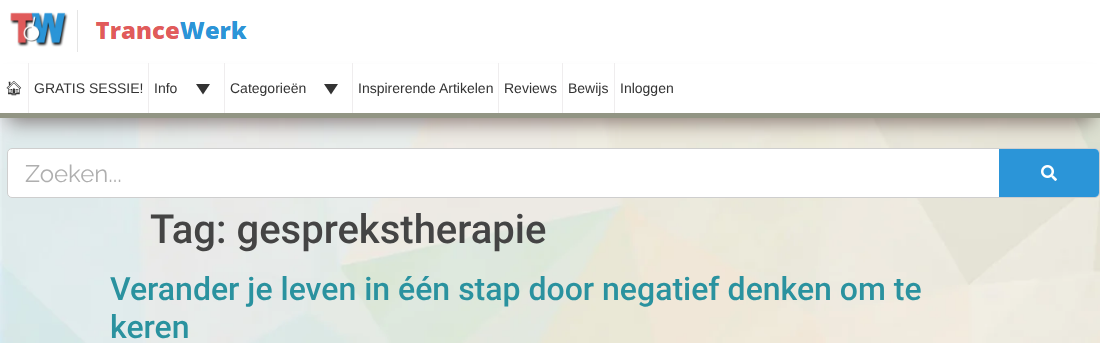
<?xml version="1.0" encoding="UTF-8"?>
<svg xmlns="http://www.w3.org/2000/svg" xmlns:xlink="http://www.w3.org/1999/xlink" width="1100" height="343">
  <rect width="100%" height="100%" fill="#ffffff" />
  <image x="0" y="118" width="1100" height="225" xlink:href="image1.png" />
  <image x="10" y="10" width="237" height="42" xlink:href="image2.png" />
  <rect x="8" y="83" width="1084" height="39" fill="#1f0000" fill-opacity="0.48" filter="blur(9.5px)" />
  <rect y="64" width="1100" height="49" fill="#ffffff" />
  <rect y="113" width="1100" height="5" fill="#929584" />
  <rect x="28" y="63" width="1" height="50" fill="#efedee" />
  <rect x="148" y="63" width="1" height="50" fill="#efedee" />
  <path d="M 210 84 l -7 10.5 l -7 -10.5 z" fill="#333333" />
  <rect x="224" y="63" width="1" height="50" fill="#efedee" />
  <path d="M 338 84 l -7 10.5 l -7 -10.5 z" fill="#333333" />
  <rect x="352" y="63" width="1" height="50" fill="#efedee" />
  <rect x="498" y="63" width="1" height="50" fill="#efedee" />
  <rect x="562" y="63" width="1" height="50" fill="#efedee" />
  <rect x="614" y="63" width="1" height="50" fill="#efedee" />
  <rect x="7.5" y="148.5" width="1092" height="49" rx="4.5" fill="#ffffff" stroke="#cecece" />
  <path d="M 999 149 h 96 c 2 0 4 2 4 4 v 40 c 0 2 -2 4 -4 4 h -96 z" fill="#2b95d8" />
  <image x="1041" y="165" width="16" height="16" xlink:href="image3.png" />
  <text x="5" y="93" style="font-family: Noto Emoji; font-size: 14px; font-weight: 500; fill: #333333">🏠︎</text>
  <text x="34" y="93" style="font-family: Liberation Sans; font-size: 14px; fill: #333333">GRATIS SESSIE!</text>
  <text x="154" y="93" style="font-family: Liberation Sans; font-size: 14px; fill: #333333">Info</text>
  <text x="230" y="93" style="font-family: Liberation Sans; font-size: 14px; fill: #333333">Categorieën</text>
  <text x="358" y="93" style="font-family: Liberation Sans; font-size: 14px; fill: #333333">Inspirerende Artikelen</text>
  <text x="504" y="93" style="font-family: Liberation Sans; font-size: 14px; fill: #333333">Reviews</text>
  <text x="568" y="93" style="font-family: Liberation Sans; font-size: 14px; fill: #333333">Bewijs</text>
  <text x="620" y="93" style="font-family: Liberation Sans; font-size: 14px; fill: #333333">Inloggen</text>
  <text x="25" y="182" style="font-family: Raleway; font-size: 24px; fill: #afafaf">Zoeken...</text>
  <text x="150" y="243" style="font-family: Roboto; font-size: 40px; font-weight: 500; fill: #444444">Tag: gesprekstherapie</text>
  <text x="110" y="300" style="font-family: Roboto; font-size: 32px; font-weight: 500; fill: #2a929f">Verander je leven in één stap door negatief denken om te</text>
  <text x="110" y="338" style="font-family: Roboto; font-size: 32px; font-weight: 500; fill: #2a929f">keren</text>
</svg>
